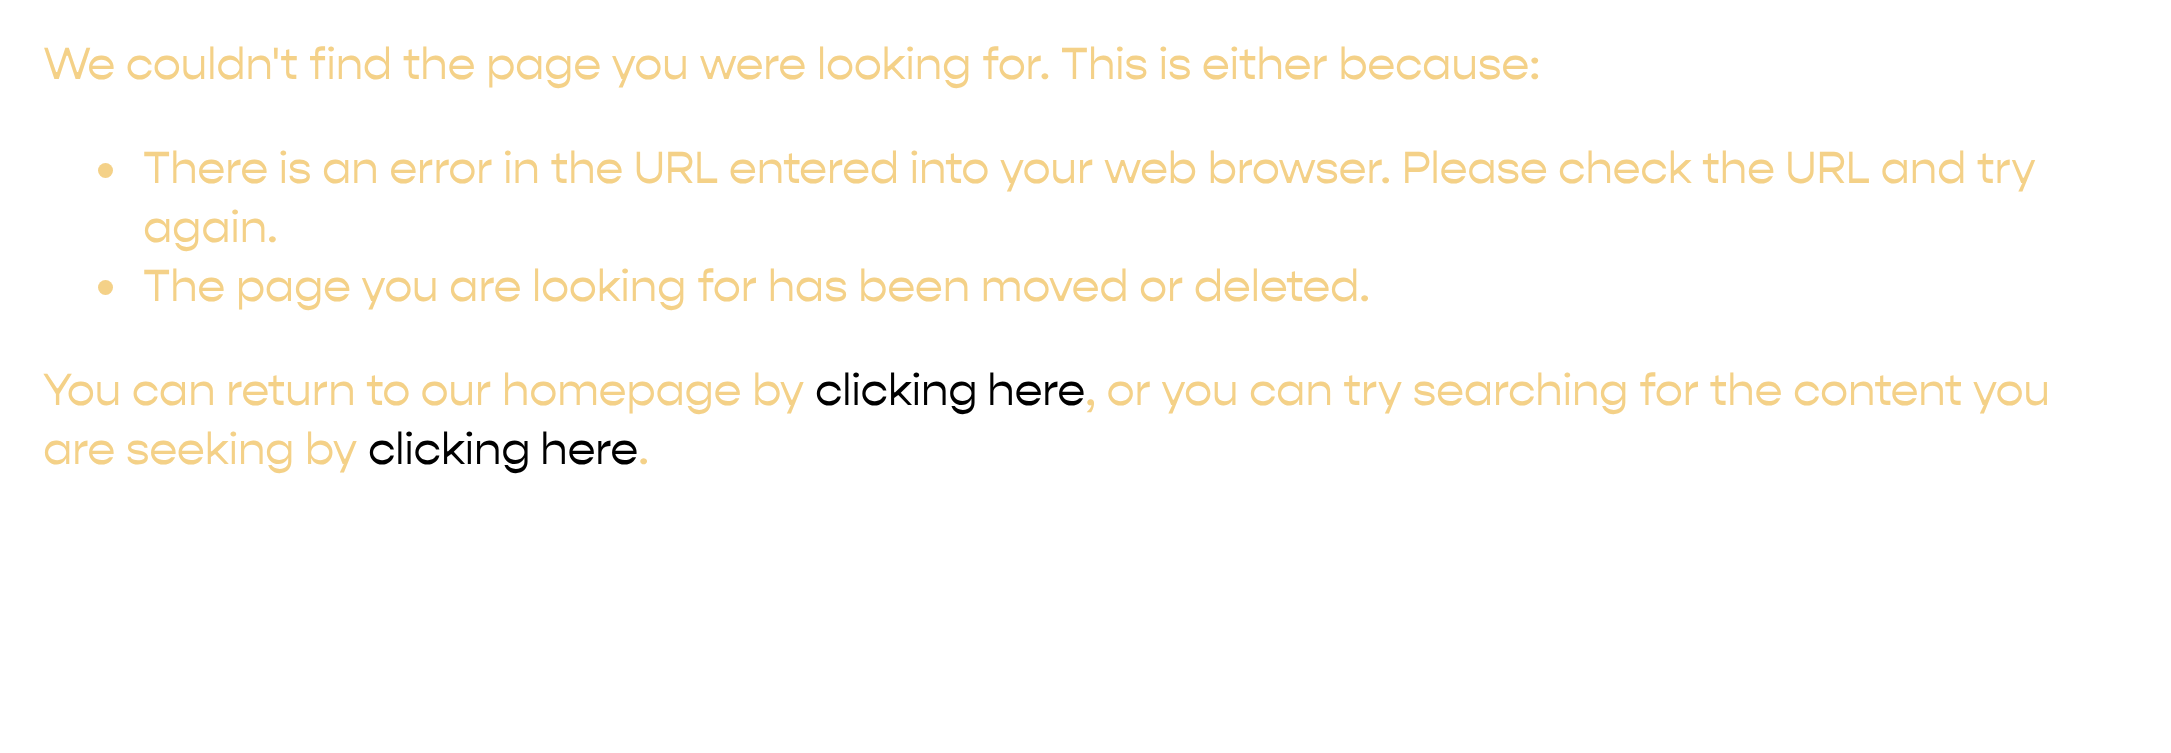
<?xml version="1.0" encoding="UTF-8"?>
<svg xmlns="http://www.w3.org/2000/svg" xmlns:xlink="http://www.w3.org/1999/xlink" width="2171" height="753">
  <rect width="100%" height="100%" fill="#ffffff" />
  <circle cx="105.5" cy="170.5" r="7.5" fill="#f4d188" />
  <circle cx="105.5" cy="287.5" r="7.5" fill="#f4d188" />
  <text x="43" y="79" style="font-family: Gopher; font-size: 45.2px; letter-spacing: -0.45px; fill: #f4d188">We couldn't find the page you were looking for. This is either because:</text>
  <text x="143" y="183" style="font-family: Gopher; font-size: 45.2px; letter-spacing: -0.45px; fill: #f4d188">There is an error in the URL entered into your web browser. Please check the URL and try</text>
  <text x="143" y="242" style="font-family: Gopher; font-size: 45.2px; letter-spacing: -0.45px; fill: #f4d188">again.</text>
  <text x="143" y="301" style="font-family: Gopher; font-size: 45.2px; letter-spacing: -0.45px; fill: #f4d188">The page you are looking for has been moved or deleted.</text>
  <text x="43" y="405" style="font-family: Gopher; font-size: 45.2px; letter-spacing: -0.45px; fill: #f4d188">You can return to our homepage by</text>
  <text x="815" y="405" word-spacing="-1" style="font-family: Gopher; font-size: 45.2px; letter-spacing: -0.45px; fill: #000000">clicking here</text>
  <text x="1085" y="405" style="font-family: Gopher; font-size: 45.2px; letter-spacing: -0.45px; fill: #f4d188">, or you can try searching for the</text>
  <text x="1793" y="405" style="font-family: Gopher; font-size: 45.2px; letter-spacing: -0.45px; fill: #f4d188">content you</text>
  <text x="43" y="464" style="font-family: Gopher; font-size: 45.2px; letter-spacing: -0.45px; fill: #f4d188">are seeking by</text>
  <text x="368" y="464" word-spacing="-1" style="font-family: Gopher; font-size: 45.2px; letter-spacing: -0.45px; fill: #000000">clicking here</text>
  <text x="638" y="464" style="font-family: Gopher; font-size: 45.2px; letter-spacing: -0.45px; fill: #f4d188">.</text>
</svg>
